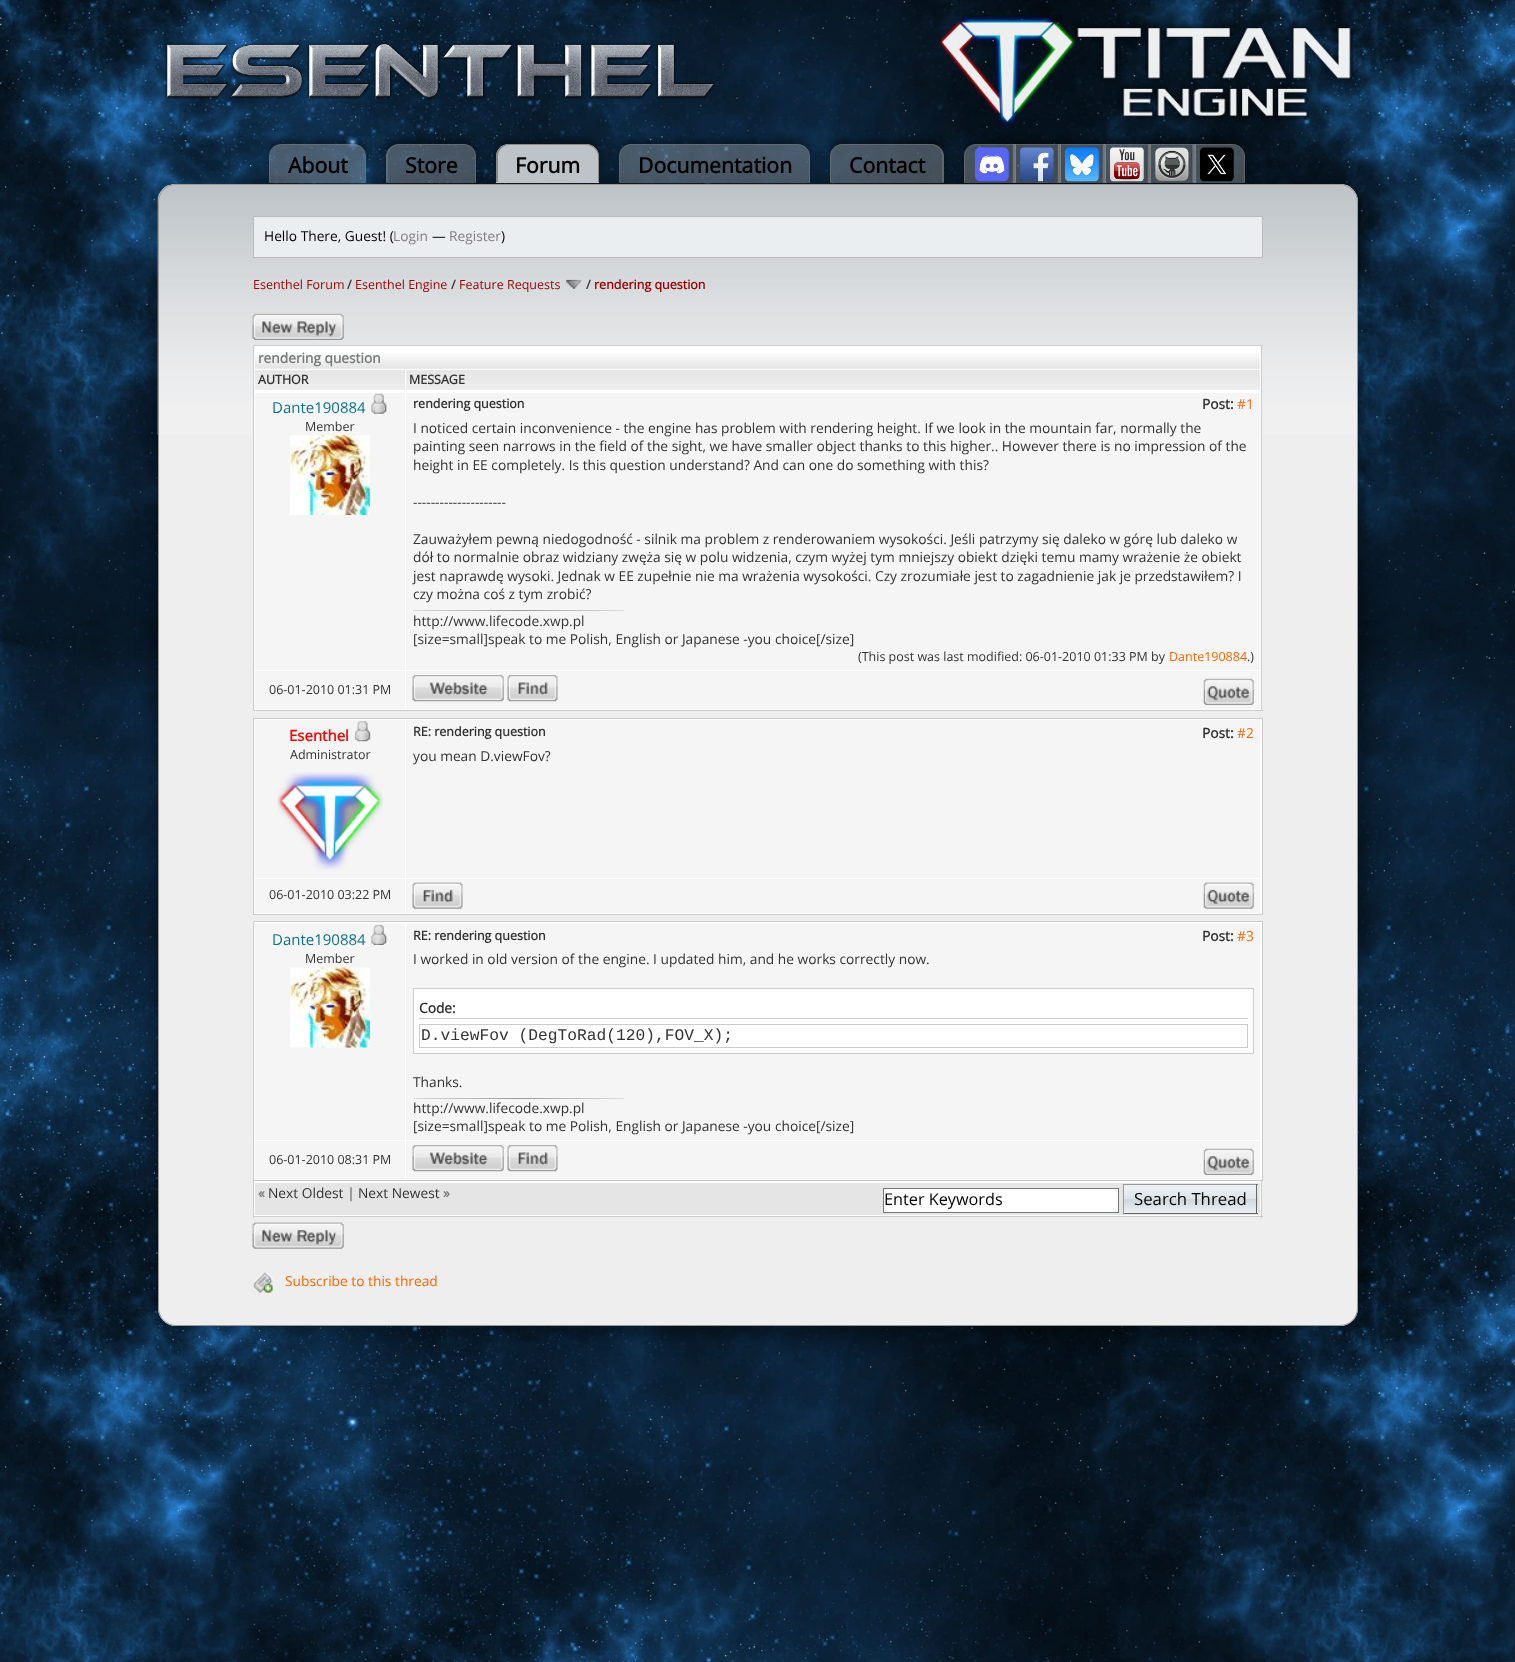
<?xml version="1.0" encoding="UTF-8"?>
<svg xmlns="http://www.w3.org/2000/svg" xmlns:xlink="http://www.w3.org/1999/xlink" width="1515" height="1662">
  <defs>
    <clipPath id="clip1"><path d="M 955 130 h 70 v 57 h -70 z m 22 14 h 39 v 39 h -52 v -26 c 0 -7 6 -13 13 -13 z" clip-rule="evenodd" /></clipPath>
    <clipPath id="clip2"><path d="M 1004 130 h 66 v 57 h -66 z m 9 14 h 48 v 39 h -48 z" clip-rule="evenodd" /></clipPath>
    <clipPath id="clip3"><path d="M 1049 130 h 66 v 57 h -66 z m 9 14 h 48 v 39 h -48 z" clip-rule="evenodd" /></clipPath>
    <clipPath id="clip4"><path d="M 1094 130 h 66 v 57 h -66 z m 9 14 h 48 v 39 h -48 z" clip-rule="evenodd" /></clipPath>
    <clipPath id="clip5"><path d="M 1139 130 h 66 v 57 h -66 z m 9 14 h 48 v 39 h -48 z" clip-rule="evenodd" /></clipPath>
    <clipPath id="clip6"><path d="M 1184 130 h 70 v 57 h -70 z m 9 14 h 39 c 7 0 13 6 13 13 v 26 h -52 z" clip-rule="evenodd" /></clipPath>
    <clipPath id="clip7"><path d="M 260 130 h 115 v 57 h -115 z m 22 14 h 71 c 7 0 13 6 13 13 v 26 h -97 v -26 c 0 -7 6 -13 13 -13 z" clip-rule="evenodd" /></clipPath>
    <clipPath id="clip8"><path d="M 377 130 h 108 v 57 h -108 z m 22 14 h 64 c 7 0 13 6 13 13 v 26 h -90 v -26 c 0 -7 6 -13 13 -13 z" clip-rule="evenodd" /></clipPath>
    <clipPath id="clip9"><path d="M 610 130 h 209 v 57 h -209 z m 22 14 h 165 c 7 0 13 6 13 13 v 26 h -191 v -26 c 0 -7 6 -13 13 -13 z" clip-rule="evenodd" /></clipPath>
    <clipPath id="clip10"><path d="M 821 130 h 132 v 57 h -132 z m 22 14 h 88 c 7 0 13 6 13 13 v 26 h -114 v -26 c 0 -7 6 -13 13 -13 z" clip-rule="evenodd" /></clipPath>
    <linearGradient id="g1" gradientUnits="userSpaceOnUse" x1="413" y1="611" x2="624" y2="611"><stop offset="0" stop-color="#dddddd" /><stop offset="0.5" stop-color="#999999" /><stop offset="1" stop-color="#dddddd" /></linearGradient>
    <linearGradient id="g2" gradientUnits="userSpaceOnUse" x1="413" y1="1098" x2="624" y2="1098"><stop offset="0" stop-color="#dddddd" /><stop offset="0.5" stop-color="#999999" /><stop offset="1" stop-color="#dddddd" /></linearGradient>
    <linearGradient id="g3" gradientUnits="userSpaceOnUse" x1="1190" y1="1185" x2="1190" y2="1213"><stop offset="0" stop-color="#eef2f4" /><stop offset="0.5" stop-color="#dde5e9" /><stop offset="0.51" stop-color="#cfd7dd" /><stop offset="1" stop-color="#ecf0f4" /></linearGradient>
  </defs>
  <rect width="100%" height="100%" fill="#ffffff" />
  <image x="0" y="0" width="1515" height="1662" xlink:href="image1.png" />
  <image x="165" y="42" width="550" height="58" xlink:href="image2.png" />
  <image x="939" y="16" width="415" height="110" xlink:href="image3.png" />
  <rect x="156" y="183" width="1210" height="1152" rx="23" fill="#000000" fill-opacity="0.4" filter="blur(9.5px)" />
  <rect x="158" y="184" width="1200" height="1142" rx="18" fill="#eeeeee" />
  <image x="157" y="185" width="1201" height="250" xlink:href="image10.png" />
  <rect x="158.5" y="184.5" width="1199" height="1141" rx="17.5" fill="none" stroke="#999999" />
  <g clip-path="url(#clip1)">
    <rect x="964" y="139" width="52" height="39" rx="13" fill="#000000" fill-opacity="0.3" filter="blur(2.5px)" />
  </g>
  <path d="M 977 144 h 39 v 39 h -52 v -26 c 0 -7 6 -13 13 -13 z" fill="#a5aaae" fill-opacity="0.4" />
  <path d="M 976 144 h 40 v 38 h -52 v -26 c 0 -7 5 -12 12 -12 z m 0 1 h 39 v 37 h -50 v -26 c 0 -6 5 -11 11 -11 z" fill="#777777" fill-opacity="0.55" fill-rule="evenodd" />
  <image x="975" y="147" width="34" height="35" xlink:href="image4.png" />
  <g clip-path="url(#clip2)">
    <rect x="1013" y="139" width="48" height="39" fill="#000000" fill-opacity="0.3" filter="blur(2.5px)" />
  </g>
  <rect x="1013" y="144" width="48" height="39" fill="#a5aaae" fill-opacity="0.4" />
  <path d="M 1012 144 h 49 l -1 1 h -46 z" fill="#777777" fill-opacity="0.55" />
  <path d="M 1061 144 v 38.5 h -1 v -37.5 z m -48.5 38.5 v -38.5 l 1.5 1 v 37.5 z" fill="#777777" fill-opacity="0.55" />
  <image x="1020" y="147" width="34" height="35" xlink:href="image5.png" />
  <g clip-path="url(#clip3)">
    <rect x="1058" y="139" width="48" height="39" fill="#000000" fill-opacity="0.3" filter="blur(2.5px)" />
  </g>
  <rect x="1058" y="144" width="48" height="39" fill="#a5aaae" fill-opacity="0.4" />
  <path d="M 1058 144 h 48 l -1 1 h -46 z" fill="#777777" fill-opacity="0.55" />
  <path d="M 1106 144 v 38.5 h -1 v -37.5 z m -48.5 38.5 v -38.5 l 1.5 1 v 37.5 z" fill="#777777" fill-opacity="0.55" />
  <image x="1065" y="147" width="34" height="35" xlink:href="image6.png" />
  <g clip-path="url(#clip4)">
    <rect x="1103" y="139" width="48" height="39" fill="#000000" fill-opacity="0.3" filter="blur(2.5px)" />
  </g>
  <rect x="1103" y="144" width="48" height="39" fill="#a5aaae" fill-opacity="0.4" />
  <path d="M 1102 144 h 49 l -1 1 h -46 z" fill="#777777" fill-opacity="0.55" />
  <path d="M 1151 144 v 38.5 h -1 v -37.5 z m -48.5 38.5 v -38.5 l 1.5 1 v 37.5 z" fill="#777777" fill-opacity="0.55" />
  <image x="1110" y="147" width="34" height="35" xlink:href="image7.png" />
  <g clip-path="url(#clip5)">
    <rect x="1148" y="139" width="48" height="39" fill="#000000" fill-opacity="0.3" filter="blur(2.5px)" />
  </g>
  <rect x="1148" y="144" width="48" height="39" fill="#a5aaae" fill-opacity="0.4" />
  <path d="M 1148 144 h 48 l -1 1 h -46 z" fill="#777777" fill-opacity="0.55" />
  <path d="M 1196 144 v 38.5 h -1 v -37.5 z m -48.5 38.5 v -38.5 l 1.5 1 v 37.5 z" fill="#777777" fill-opacity="0.55" />
  <image x="1155" y="147" width="34" height="35" xlink:href="image8.png" />
  <g clip-path="url(#clip6)">
    <rect x="1193" y="139" width="52" height="39" rx="13" fill="#000000" fill-opacity="0.3" filter="blur(2.5px)" />
  </g>
  <path d="M 1193 144 h 39 c 7 0 13 6 13 13 v 26 h -52 z" fill="#a5aaae" fill-opacity="0.4" />
  <path d="M 1192 144 h 40 c 7 0 13 5 13 12 v 26 h -53 z m 2 1 h 38 c 7 0 12 5 12 11 v 26 h -50 z" fill="#777777" fill-opacity="0.55" fill-rule="evenodd" />
  <g clip-path="url(#clip7)">
    <rect x="269" y="139" width="97" height="39" rx="13" fill="#000000" fill-opacity="0.3" filter="blur(2.5px)" />
  </g>
  <path d="M 282 144 h 71 c 7 0 13 6 13 13 v 26 h -97 v -26 c 0 -7 6 -13 13 -13 z" fill="#a5aaae" fill-opacity="0.4" />
  <path d="M 281 144 h 73 c 7 0 12 5 12 12 v 26 h -97 v -26 c 0 -7 5 -12 12 -12 z m 0 1 h 73 c 6 0 11 5 11 11 v 26 h -95 v -26 c 0 -6 5 -11 11 -11 z" fill="#777777" fill-opacity="0.55" fill-rule="evenodd" />
  <g clip-path="url(#clip8)">
    <rect x="386" y="139" width="90" height="39" rx="13" fill="#000000" fill-opacity="0.3" filter="blur(2.5px)" />
  </g>
  <path d="M 399 144 h 64 c 7 0 13 6 13 13 v 26 h -90 v -26 c 0 -7 6 -13 13 -13 z" fill="#a5aaae" fill-opacity="0.4" />
  <path d="M 399 144 h 65 c 7 0 12 5 12 12 v 26 h -90 v -26 c 0 -7 6 -12 13 -12 z m 0 1 h 65 c 6 0 11 5 11 11 v 26 h -87 v -26 c 0 -6 5 -11 11 -11 z" fill="#777777" fill-opacity="0.55" fill-rule="evenodd" />
  <rect x="496" y="139" width="103" height="39" rx="13" fill="#000000" fill-opacity="0.3" filter="blur(2.5px)" />
  <path d="M 509 144 h 77 c 7 0 13 6 13 13 v 26 h -103 v -26 c 0 -7 6 -13 13 -13 z" fill="#bec3c7" />
  <path d="M 509 144 h 77 c 7 0 13 5 13 12 v 26 h -103 v -26 c 0 -7 6 -12 13 -12 z m 0 1 h 77 c 6 0 12 5 12 11 v 26 h -100 v -26 c 0 -6 5 -11 11 -11 z" fill="#888888" fill-rule="evenodd" />
  <g clip-path="url(#clip9)">
    <rect x="619" y="139" width="191" height="39" rx="13" fill="#000000" fill-opacity="0.3" filter="blur(2.5px)" />
  </g>
  <path d="M 632 144 h 165 c 7 0 13 6 13 13 v 26 h -191 v -26 c 0 -7 6 -13 13 -13 z" fill="#a5aaae" fill-opacity="0.4" />
  <path d="M 631 144 h 167 c 6 0 12 5 12 12 v 26 h -191 v -26 c 0 -7 5 -12 12 -12 z m 0 1 h 167 c 6 0 11 5 11 11 v 26 h -189 v -26 c 0 -6 5 -11 11 -11 z" fill="#777777" fill-opacity="0.55" fill-rule="evenodd" />
  <g clip-path="url(#clip10)">
    <rect x="830" y="139" width="114" height="39" rx="13" fill="#000000" fill-opacity="0.3" filter="blur(2.5px)" />
  </g>
  <path d="M 843 144 h 88 c 7 0 13 6 13 13 v 26 h -114 v -26 c 0 -7 6 -13 13 -13 z" fill="#a5aaae" fill-opacity="0.4" />
  <path d="M 842 144 h 89 c 7 0 13 5 13 12 v 26 h -114 v -26 c 0 -7 6 -12 12 -12 z m 0 1 h 89 c 6 0 11 5 11 11 v 26 h -111 v -26 c 0 -6 5 -11 11 -11 z" fill="#777777" fill-opacity="0.55" fill-rule="evenodd" />
  <image x="1200" y="147" width="34" height="35" xlink:href="image9.png" />
  <rect x="253.5" y="216.5" width="1009" height="41" fill="#eaeef0" stroke="#bbbbbb" />
  <image x="566" y="279" width="16" height="10" xlink:href="image11.png" />
  <image x="252" y="313" width="92" height="27" xlink:href="image12.png" />
  <rect x="254" y="346" width="1007" height="364" fill="#ffffff" />
  <rect x="253" y="345" width="1010" height="1" fill="#cccccc" />
  <rect x="1261" y="345" width="1" height="366" fill="#cccccc" />
  <rect x="253" y="345" width="1" height="46" fill="#cccccc" />
  <image x="255" y="353" width="1005" height="16" xlink:href="image13.png" />
  <image x="255" y="370" width="150" height="20" xlink:href="image14.png" />
  <image x="406" y="370" width="854" height="20" xlink:href="image15.png" />
  <rect x="253" y="710" width="1010" height="1" fill="#cccccc" />
  <rect x="253" y="391" width="1" height="320" fill="#cccccc" />
  <rect x="255" y="393" width="150" height="277" fill="#f5f5f5" />
  <image x="371" y="393" width="16" height="21" xlink:href="image16.png" />
  <image x="290" y="435" width="80" height="80" xlink:href="image17.png" />
  <rect x="406" y="393" width="854" height="277" fill="#f5f5f5" />
  <rect x="413" y="610" width="211" height="1" fill="url(#g1)" />
  <rect x="255" y="671" width="150" height="38" fill="#f5f5f5" />
  <rect x="406" y="671" width="854" height="38" fill="#f5f5f5" />
  <image x="412" y="675" width="92" height="27" xlink:href="image18.png" />
  <image x="507" y="675" width="51" height="27" xlink:href="image19.png" />
  <image x="1203" y="678" width="51" height="27" xlink:href="image20.png" />
  <rect x="253.5" y="718.5" width="1009" height="196" fill="#ffffff" stroke="#cccccc" />
  <rect x="255" y="720" width="150" height="158" fill="#f5f5f5" />
  <image x="354" y="721" width="17" height="21" xlink:href="image21.png" />
  <image x="277" y="772" width="106" height="98" xlink:href="image22.png" />
  <rect x="406" y="720" width="854" height="158" fill="#f5f5f5" />
  <rect x="255" y="879" width="150" height="34" fill="#f5f5f5" />
  <rect x="406" y="879" width="854" height="34" fill="#f5f5f5" />
  <image x="412" y="882" width="51" height="27" xlink:href="image23.png" />
  <image x="1203" y="882" width="51" height="27" xlink:href="image24.png" />
  <rect x="253.5" y="921.5" width="1009" height="259" fill="#ffffff" stroke="#cccccc" />
  <rect x="255" y="924" width="150" height="216" fill="#f5f5f5" />
  <image x="371" y="925" width="16" height="20" xlink:href="image25.png" />
  <image x="290" y="967" width="80" height="81" xlink:href="image26.png" />
  <rect x="406" y="924" width="854" height="216" fill="#f5f5f5" />
  <rect x="413.5" y="988.5" width="840" height="65" fill="#ffffff" stroke="#cccccc" />
  <rect x="419" y="1018" width="829" height="1" fill="#cccccc" />
  <rect x="419.5" y="1024.5" width="828" height="23" fill="none" stroke="#cccccc" />
  <rect x="413" y="1098" width="211" height="1" fill="url(#g2)" />
  <rect x="255" y="1141" width="150" height="38" fill="#f5f5f5" />
  <rect x="406" y="1141" width="854" height="38" fill="#f5f5f5" />
  <image x="412" y="1145" width="92" height="27" xlink:href="image18.png" />
  <image x="507" y="1145" width="51" height="27" xlink:href="image19.png" />
  <image x="1203" y="1148" width="51" height="27" xlink:href="image20.png" />
  <rect x="254" y="1181" width="1007" height="35" fill="#ffffff" />
  <rect x="1261" y="1181" width="1" height="37" fill="#cccccc" />
  <rect x="253" y="1216" width="1010" height="1" fill="#cccccc" />
  <rect x="253" y="1181" width="1" height="37" fill="#cccccc" />
  <rect x="255" y="1183" width="1005" height="32" fill="#e5e5e5" />
  <rect x="883.5" y="1188.5" width="235" height="24" fill="#ffffff" stroke="#757978" />
  <rect x="1124" y="1185" width="134" height="28" fill="url(#g3)" />
  <rect x="1123" y="1184" width="135" height="1" fill="#999999" />
  <rect x="1256" y="1184" width="1" height="30" fill="#666666" />
  <rect x="1123" y="1213" width="135" height="1" fill="#666666" />
  <rect x="1123" y="1184" width="1" height="30" fill="#999999" />
  <image x="252" y="1222" width="92" height="27" xlink:href="image27.png" />
  <image x="253" y="1272" width="20" height="21" xlink:href="image28.png" />
  <text x="288" y="173" style="font-family: Open Sans; font-size: 21.25px; font-weight: bold; fill: #000000">About</text>
  <text x="405" y="173" style="font-family: Open Sans; font-size: 21.25px; font-weight: bold; fill: #000000">Store</text>
  <text x="515" y="173" style="font-family: Open Sans; font-size: 21.25px; font-weight: bold; fill: #000000">Forum</text>
  <text x="638" y="173" style="font-family: Open Sans; font-size: 21.25px; font-weight: bold; fill: #000000">Documentation</text>
  <text x="849" y="173" style="font-family: Open Sans; font-size: 21.25px; font-weight: bold; fill: #000000">Contact</text>
  <text x="264" y="241" style="font-family: Open Sans; font-size: 13.75px; fill: #000000">Hello There, Guest! (</text>
  <text x="393" y="241" style="font-family: Open Sans; font-size: 13.75px; fill: #808080">Login</text>
  <text x="432" y="241" style="font-family: Open Sans; font-size: 13.75px; fill: #000000">—</text>
  <text x="449" y="241" style="font-family: Open Sans; font-size: 13.75px; fill: #808080">Register</text>
  <text x="501" y="241" style="font-family: Open Sans; font-size: 13.75px; fill: #000000">)</text>
  <text x="253" y="289" style="font-family: Open Sans; font-size: 12.5px; fill: #990000">Esenthel Forum</text>
  <text x="347" y="289" style="font-family: Open Sans; font-size: 12.5px; font-weight: bold; fill: #333333">/</text>
  <text x="355" y="289" style="font-family: Open Sans; font-size: 12.5px; fill: #990000">Esenthel Engine</text>
  <text x="451" y="289" style="font-family: Open Sans; font-size: 12.5px; font-weight: bold; fill: #333333">/</text>
  <text x="459" y="289" style="font-family: Open Sans; font-size: 12.5px; fill: #990000">Feature Requests</text>
  <text x="586" y="289" style="font-family: Open Sans; font-size: 12.5px; font-weight: bold; fill: #333333">/</text>
  <text x="594" y="289" style="font-family: Open Sans; font-size: 12.5px; font-weight: bold; fill: #990000">rendering question</text>
  <text x="258" y="363" style="font-family: Open Sans; font-size: 13.75px; font-weight: bold; fill: #757978">rendering question</text>
  <text x="258" y="384" style="font-family: Open Sans; font-size: 12.5px; font-weight: bold; fill: #333333">AUTHOR</text>
  <text x="409" y="384" style="font-family: Open Sans; font-size: 12.5px; font-weight: bold; fill: #333333">MESSAGE</text>
  <text x="272" y="413" style="font-family: Open Sans; font-size: 15px; fill: #0c728b">Dante190884</text>
  <text x="305" y="431" style="font-family: Open Sans; font-size: 12.5px; fill: #333333">Member</text>
  <text x="413" y="408" style="font-family: Open Sans; font-size: 12.5px; font-weight: bold; fill: #333333">rendering question</text>
  <text x="1202" y="409" style="font-family: Open Sans; font-size: 13.75px; font-weight: bold; fill: #333333">Post:</text>
  <text x="1237" y="409" style="font-family: Open Sans; font-size: 13.75px; fill: #ff6600">#1</text>
  <text x="413" y="433" style="font-family: Open Sans; font-size: 13.75px; fill: #333333">I noticed certain inconvenience - the engine has problem with rendering height. If we look in the mountain far, normally the</text>
  <text x="413" y="451" style="font-family: Open Sans; font-size: 13.75px; fill: #333333">painting seen narrows in the field of the sight, we have smaller object thanks to this higher.. However there is no impression of the</text>
  <text x="413" y="470" style="font-family: Open Sans; font-size: 13.75px; fill: #333333">height in EE completely. Is this question understand? And can one do something with this?</text>
  <text x="413" y="507" style="font-family: Open Sans; font-size: 13.75px; fill: #333333">---------------------</text>
  <text x="413" y="544" style="font-family: Open Sans; font-size: 13.75px; fill: #333333">Zauważyłem pewną niedogodność - silnik ma problem z renderowaniem wysokości. Jeśli patrzymy się daleko w górę lub daleko w</text>
  <text x="413" y="562" style="font-family: Open Sans; font-size: 13.75px; fill: #333333">dół to normalnie obraz widziany zwęża się w polu widzenia, czym wyżej tym mniejszy obiekt dzięki temu mamy wrażenie że obiekt</text>
  <text x="413" y="581" style="font-family: Open Sans; font-size: 13.75px; fill: #333333">jest naprawdę wysoki. Jednak w EE zupełnie nie ma wrażenia wysokości. Czy zrozumiałe jest to zagadnienie jak je przedstawiłem? I</text>
  <text x="413" y="599" style="font-family: Open Sans; font-size: 13.75px; fill: #333333">czy można coś z tym zrobić?</text>
  <text x="413" y="626" style="font-family: Open Sans; font-size: 13.75px; fill: #333333">http://www.lifecode.xwp.pl</text>
  <text x="413" y="644" style="font-family: Open Sans; font-size: 13.75px; fill: #333333">[size=small]speak to me Polish, English or Japanese -you choice[/size]</text>
  <text x="858" y="661" style="font-family: Open Sans; font-size: 12.5px; fill: #333333">(This post was last modified: 06-01-2010 01:33 PM by</text>
  <text x="1169" y="661" style="font-family: Open Sans; font-size: 12.5px; fill: #ff6600">Dante190884</text>
  <text x="1247" y="661" style="font-family: Open Sans; font-size: 12.5px; fill: #333333">.)</text>
  <text x="269" y="694" style="font-family: Open Sans; font-size: 12.5px; fill: #333333">06-01-2010 01:31 PM</text>
  <text x="289" y="741" style="font-family: Open Sans; font-size: 15px; font-weight: bold; fill: #ff0000">Esenthel</text>
  <text x="290" y="759" style="font-family: Open Sans; font-size: 12.5px; fill: #333333">Administrator</text>
  <text x="413" y="736" style="font-family: Open Sans; font-size: 12.5px; font-weight: bold; fill: #333333">RE: rendering question</text>
  <text x="1202" y="738" style="font-family: Open Sans; font-size: 13.75px; font-weight: bold; fill: #333333">Post:</text>
  <text x="1237" y="738" style="font-family: Open Sans; font-size: 13.75px; fill: #ff6600">#2</text>
  <text x="413" y="761" style="font-family: Open Sans; font-size: 13.75px; fill: #333333">you mean D.viewFov?</text>
  <text x="269" y="899" style="font-family: Open Sans; font-size: 12.5px; fill: #333333">06-01-2010 03:22 PM</text>
  <text x="272" y="945" style="font-family: Open Sans; font-size: 15px; fill: #0c728b">Dante190884</text>
  <text x="305" y="963" style="font-family: Open Sans; font-size: 12.5px; fill: #333333">Member</text>
  <text x="413" y="940" style="font-family: Open Sans; font-size: 12.5px; font-weight: bold; fill: #333333">RE: rendering question</text>
  <text x="1202" y="941" style="font-family: Open Sans; font-size: 13.75px; font-weight: bold; fill: #333333">Post:</text>
  <text x="1237" y="941" style="font-family: Open Sans; font-size: 13.75px; fill: #ff6600">#3</text>
  <text x="413" y="964" style="font-family: Open Sans; font-size: 13.75px; fill: #333333">I worked in old version of the engine. I updated him, and he works correctly now.</text>
  <text x="419" y="1013" style="font-family: Open Sans; font-size: 13.75px; font-weight: bold; fill: #333333">Code:</text>
  <text x="421" y="1040" style="font-family: Liberation Mono; font-size: 16.25px; fill: #333333">D.viewFov (DegToRad(120),FOV_X);</text>
  <text x="413" y="1087" style="font-family: Open Sans; font-size: 13.75px; fill: #333333">Thanks.</text>
  <text x="413" y="1113" style="font-family: Open Sans; font-size: 13.75px; fill: #333333">http://www.lifecode.xwp.pl</text>
  <text x="413" y="1131" style="font-family: Open Sans; font-size: 13.75px; fill: #333333">[size=small]speak to me Polish, English or Japanese -you choice[/size]</text>
  <text x="269" y="1164" style="font-family: Open Sans; font-size: 12.5px; fill: #333333">06-01-2010 08:31 PM</text>
  <text x="258" y="1198" style="font-family: Open Sans; font-size: 13.75px; font-weight: bold; fill: #757978">«</text>
  <text x="268" y="1198" style="font-family: Open Sans; font-size: 13.75px; fill: #333333">Next Oldest</text>
  <text x="347" y="1198" style="font-family: Open Sans; font-size: 13.75px; font-weight: bold; fill: #757978">|</text>
  <text x="358" y="1198" style="font-family: Open Sans; font-size: 13.75px; fill: #333333">Next Newest</text>
  <text x="443" y="1198" style="font-family: Open Sans; font-size: 13.75px; font-weight: bold; fill: #757978">»</text>
  <text x="884" y="1205" style="font-family: Open Sans; font-size: 16.25px; fill: #000000">Enter Keywords</text>
  <text x="1134" y="1205" style="font-family: Open Sans; font-size: 16.75px; fill: #000000">Search Thread</text>
  <text x="285" y="1286" style="font-family: Open Sans; font-size: 13.75px; fill: #ff6600">Subscribe to this thread</text>
</svg>
